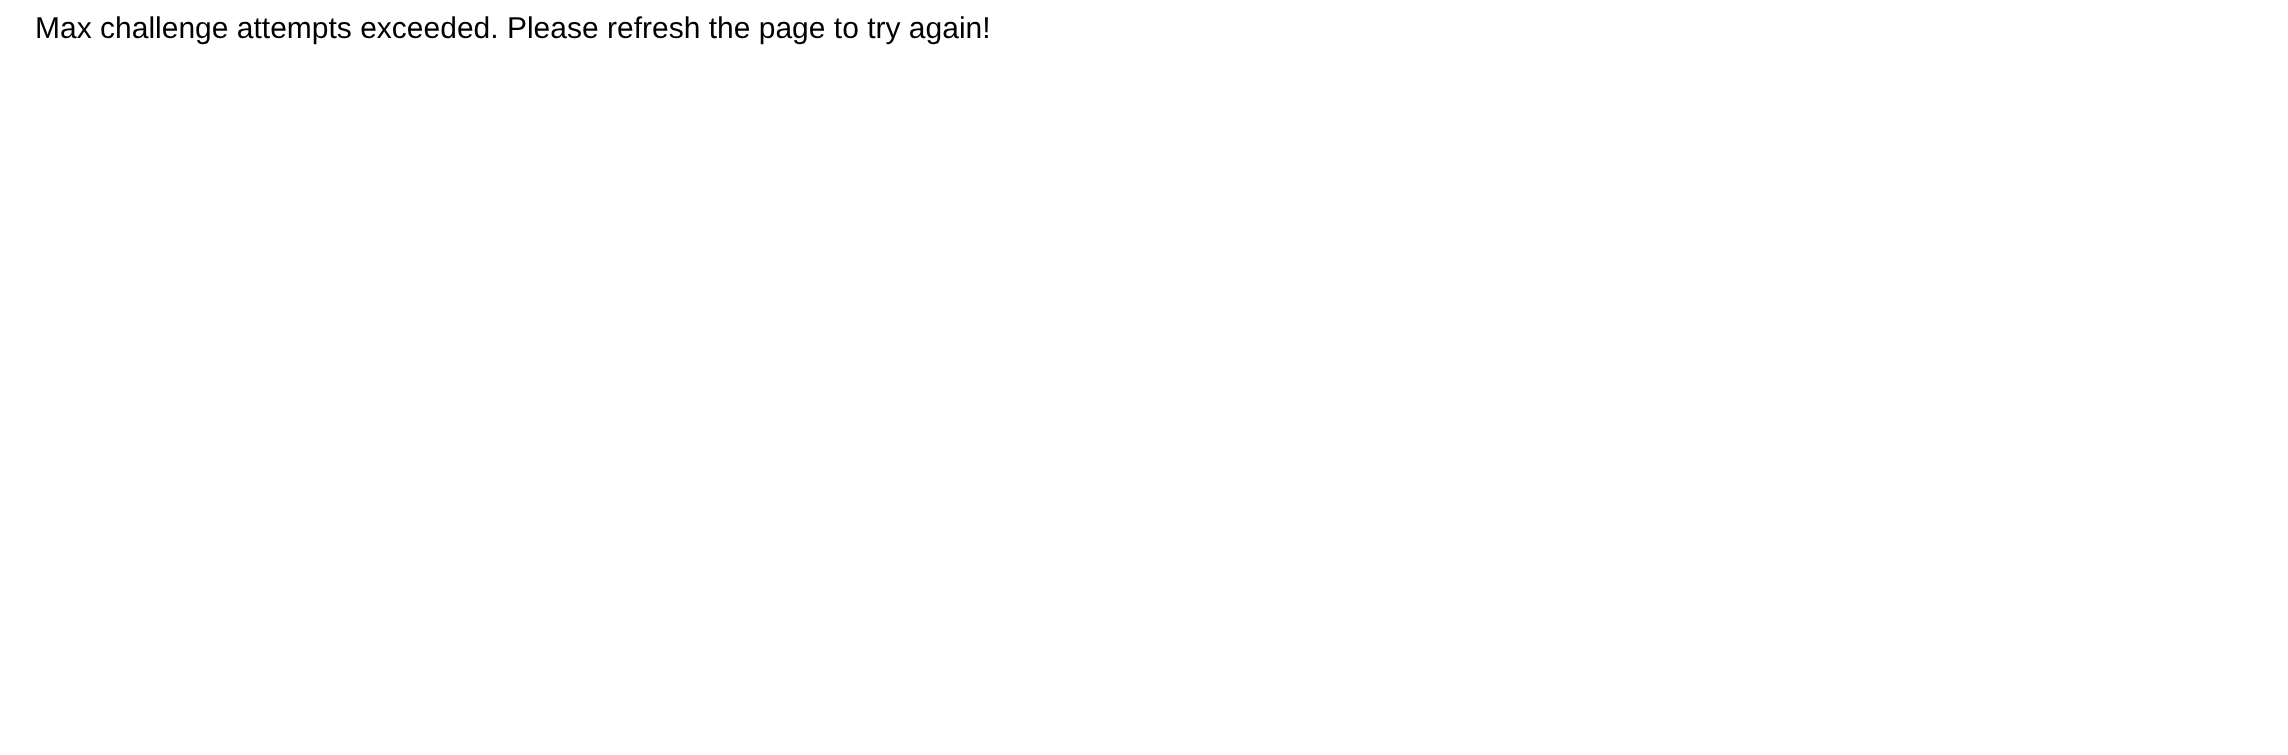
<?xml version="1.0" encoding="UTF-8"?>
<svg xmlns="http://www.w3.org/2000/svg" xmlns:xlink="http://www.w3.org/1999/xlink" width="2288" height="755">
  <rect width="100%" height="100%" fill="#ffffff" />
  <text x="35" y="38" style="font-family: Liberation Sans; font-size: 30px; fill: #000000">Max challenge attempts exceeded. Please refresh the page to try again!</text>
</svg>
